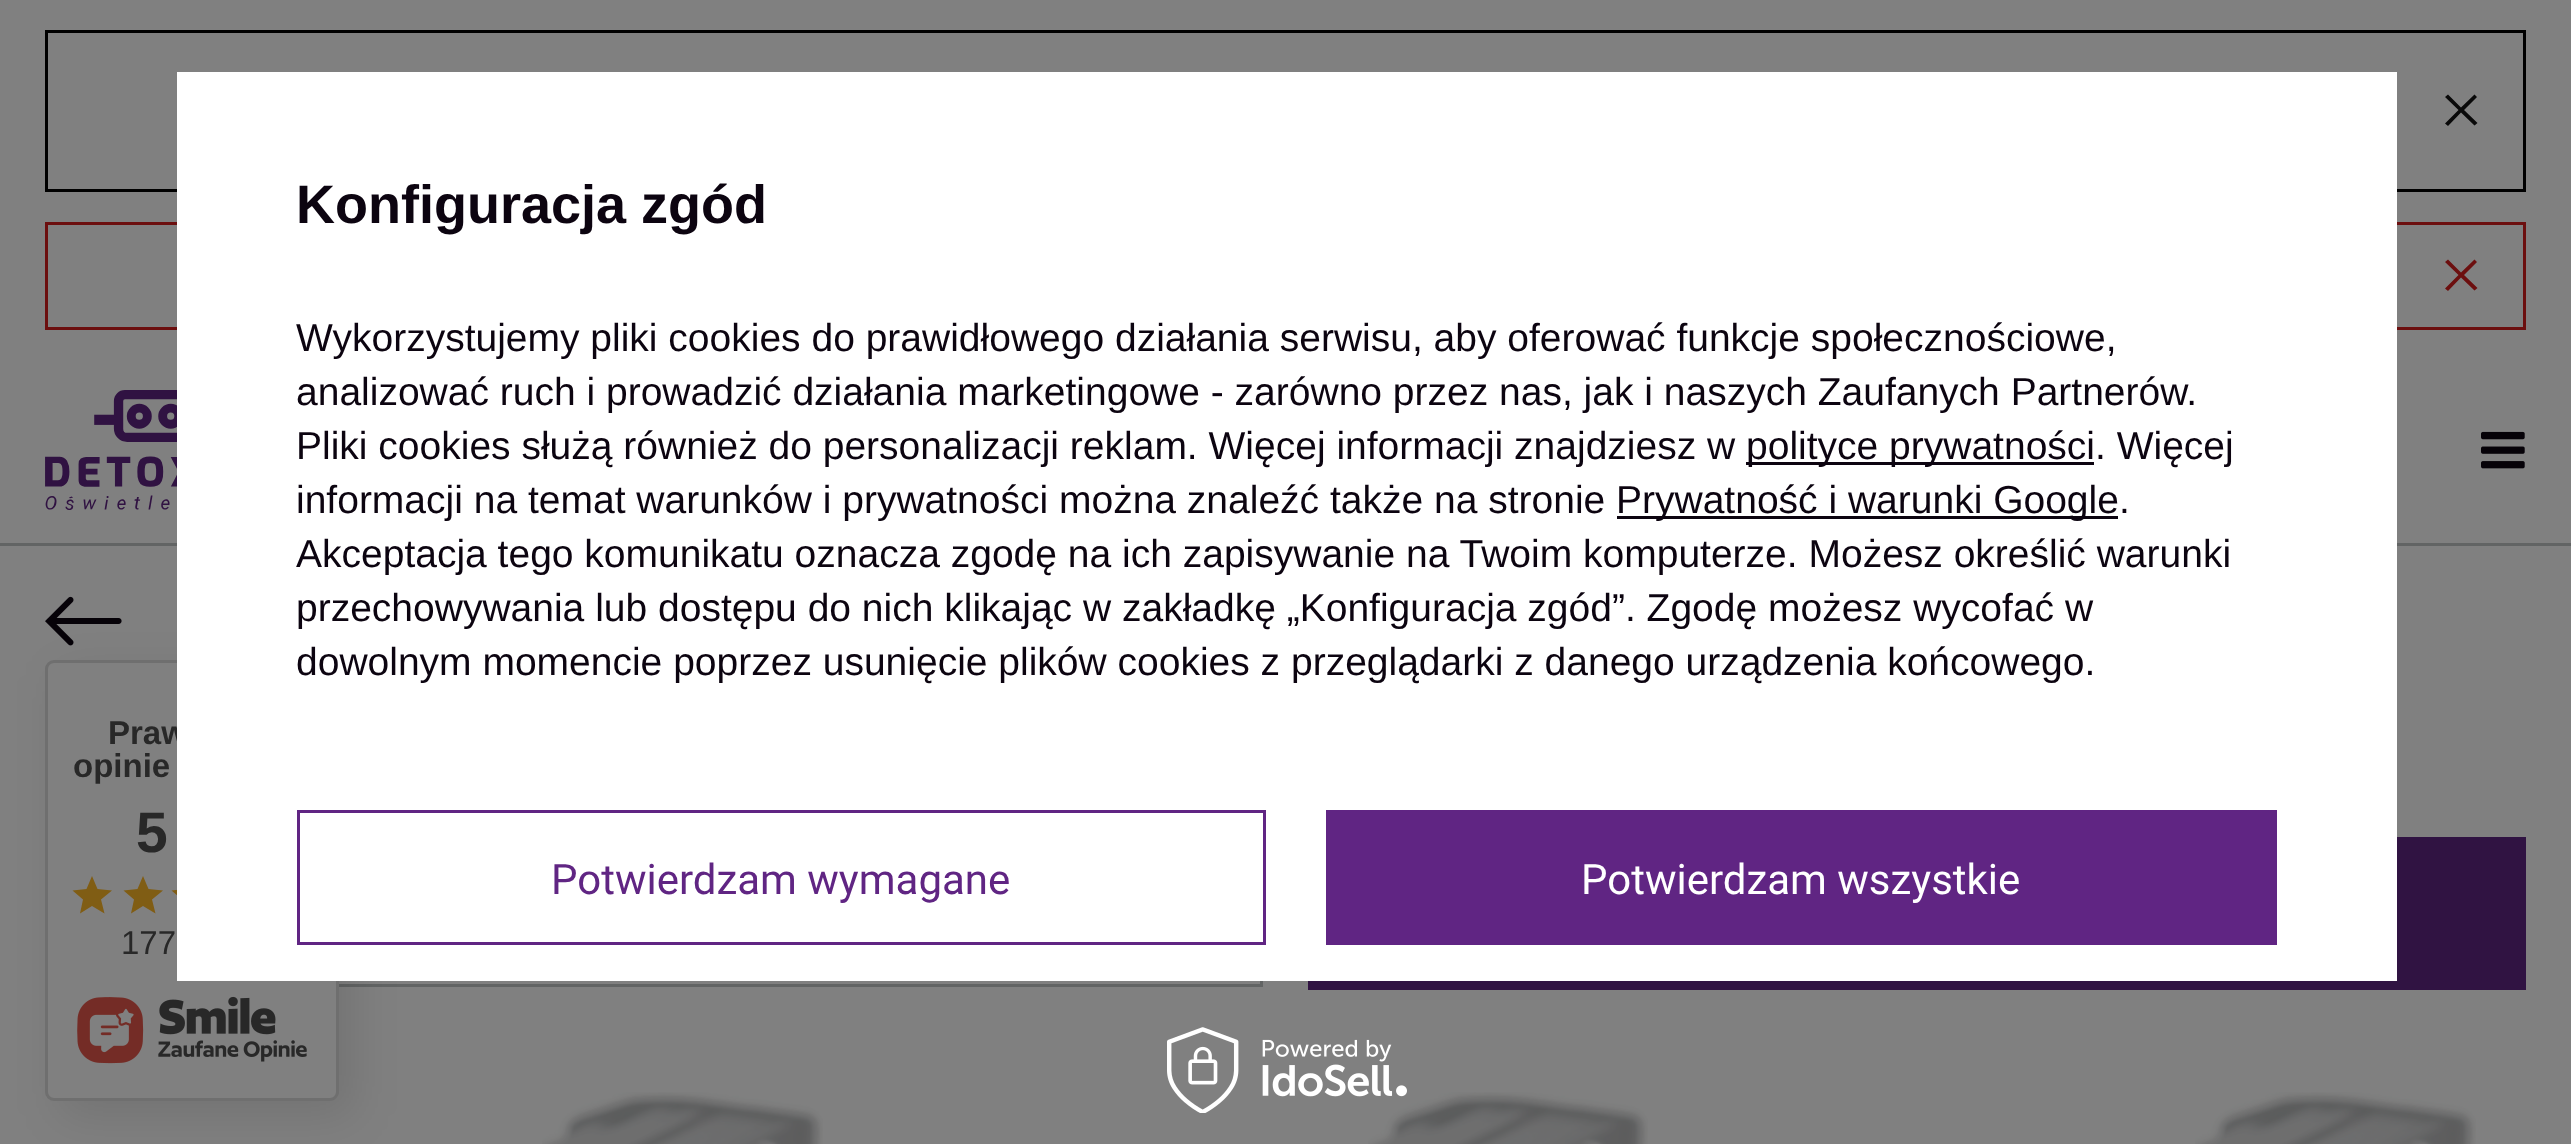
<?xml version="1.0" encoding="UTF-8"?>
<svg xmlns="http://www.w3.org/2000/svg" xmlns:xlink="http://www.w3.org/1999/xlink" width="2571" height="1144">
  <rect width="100%" height="100%" fill="#808080" />
  <rect y="543" width="2571" height="3" fill="#626464" />
  <rect x="46.5" y="31.5" width="2478" height="159" fill="none" stroke="#000000" stroke-width="3" />
  <path d="M 2477.5 123 l -3 2.5 l -13.5 -13 l -13 13.5 l -3 -2.5 l 13.5 -13.5 l -13.5 -13 l 3 -2.5 l 13 13 l 13.5 -13 l 2.5 2.5 l -13 13 z" fill="#090909" />
  <rect x="46.5" y="223.5" width="2478" height="105" fill="none" stroke="#6c0f0f" stroke-width="3" />
  <path d="M 2477.5 288 l -3 2.5 l -13.5 -13 l -13 13.5 l -3 -2.5 l 13.5 -13.5 l -13.5 -13 l 3 -2.5 l 13 13 l 13.5 -13 l 2.5 2.5 l -13 13 z" fill="#6c0f0f" />
  <image x="45" y="390" width="132" height="120" xlink:href="image1.png" />
  <image x="2481" y="431" width="44" height="38" xlink:href="image2.png" />
  <image x="45" y="596" width="77" height="50" xlink:href="image3.png" />
  <rect x="46.5" y="838.5" width="1215" height="147" fill="none" stroke="#626464" stroke-width="3" />
  <rect x="1308" y="837" width="1218" height="153" fill="#301342" />
  <image x="542" y="1092" width="281" height="52" xlink:href="image4.png" />
  <image x="1368" y="1092" width="280" height="52" xlink:href="image5.png" />
  <image x="2195" y="1092" width="281" height="52" xlink:href="image4.png" />
  <rect x="60" y="675" width="294" height="441" rx="9" fill="#000000" fill-opacity="0.1" filter="blur(22.5px)" />
  <rect x="46.5" y="661.5" width="291" height="438" rx="7.5" fill="#808080" stroke="#6f6f6f" stroke-width="3" />
  <path d="M 80 913.5 l 3 -14 l -10.5 -9 l 14 -1.5 l 5.5 -13 l 5.5 13 l 14.5 1.5 l -11 9 l 3.5 14 l -12.5 -7.5 z" fill="#805d14" />
  <path d="M 131 913.5 l 3 -14 l -10.5 -9 l 14 -1.5 l 5.5 -13 l 5.5 13 l 14.5 1.5 l -11 9 l 3.5 14 l -12.5 -7.5 z" fill="#805d14" />
  <path d="M 179 913.5 l 3 -14 l -10.5 -9 l 14 -1.5 l 5.5 -13 l 5.5 13 l 14.5 1.5 l -11 9 l 3.5 14 l -12.5 -7.5 z" fill="#805d14" />
  <image x="77" y="996" width="230" height="68" xlink:href="image6.png" />
  <image x="1167" y="1027" width="240" height="86" xlink:href="image7.png" />
  <text x="108" y="744" style="font-family: Liberation Sans; font-size: 33px; font-weight: bold; fill: #282828">Praw</text>
  <text x="73" y="777" style="font-family: Liberation Sans; font-size: 33px; font-weight: bold; fill: #282828">opinie</text>
  <text x="136" y="852" style="font-family: Liberation Sans; font-size: 57px; font-weight: bold; fill: #282828">5</text>
  <text x="121" y="954" style="font-family: Liberation Sans; font-size: 33px; fill: #282828">177</text>
  <rect x="177" y="72" width="2220" height="909" fill="#ffffff" />
  <text x="296" y="223" style="font-family: Liberation Sans; font-size: 54px; font-weight: bold; fill: #0c0410">Konfiguracja zgód</text>
  <text x="296" y="351" style="font-family: Liberation Sans; font-size: 39px; fill: #0c0410">Wykorzystujemy pliki cookies do prawidłowego działania serwisu, aby oferować funkcje społecznościowe,</text>
  <text x="296" y="405" style="font-family: Liberation Sans; font-size: 39px; fill: #0c0410">analizować ruch i prowadzić działania marketingowe - zarówno przez nas, jak i naszych Zaufanych Partnerów.</text>
  <text x="296" y="459" style="font-family: Liberation Sans; font-size: 39px; fill: #0c0410">Pliki cookies służą również do personalizacji reklam. Więcej informacji znajdziesz w</text>
  <rect x="1746" y="462" width="348" height="3" fill="#0c0410" />
  <text x="1746" y="459" style="font-family: Liberation Sans; font-size: 39px; fill: #0c0410">polityce prywatności. Więcej</text>
  <text x="296" y="513" style="font-family: Liberation Sans; font-size: 39px; fill: #0c0410">informacji na temat warunków i prywatności można znaleźć także na stronie</text>
  <rect x="1617" y="516" width="501" height="3" fill="#0c0410" />
  <text x="1616" y="513" style="font-family: Liberation Sans; font-size: 39px; fill: #0c0410">Prywatność i warunki Google.</text>
  <text x="296" y="567" style="font-family: Liberation Sans; font-size: 39px; fill: #0c0410">Akceptacja tego komunikatu oznacza zgodę na ich zapisywanie na Twoim komputerze. Możesz określić warunki</text>
  <text x="296" y="621" style="font-family: Liberation Sans; font-size: 39px; fill: #0c0410">przechowywania lub dostępu do nich klikając w zakładkę „Konfiguracja zgód”. Zgodę możesz wycofać w</text>
  <text x="296" y="675" style="font-family: Liberation Sans; font-size: 39px; fill: #0c0410">dowolnym momencie poprzez usunięcie plików cookies z przeglądarki z danego urządzenia końcowego.</text>
  <rect x="298.5" y="811.5" width="966" height="132" fill="none" stroke="#602583" stroke-width="3" />
  <text x="551" y="894" style="font-family: Roboto; font-size: 42px; fill: #602583">Potwierdzam wymagane</text>
  <rect x="1326" y="810" width="951" height="135" fill="#602583" />
  <text x="1581" y="894" style="font-family: Roboto; font-size: 42px; fill: #ffffff">Potwierdzam wszystkie</text>
</svg>
